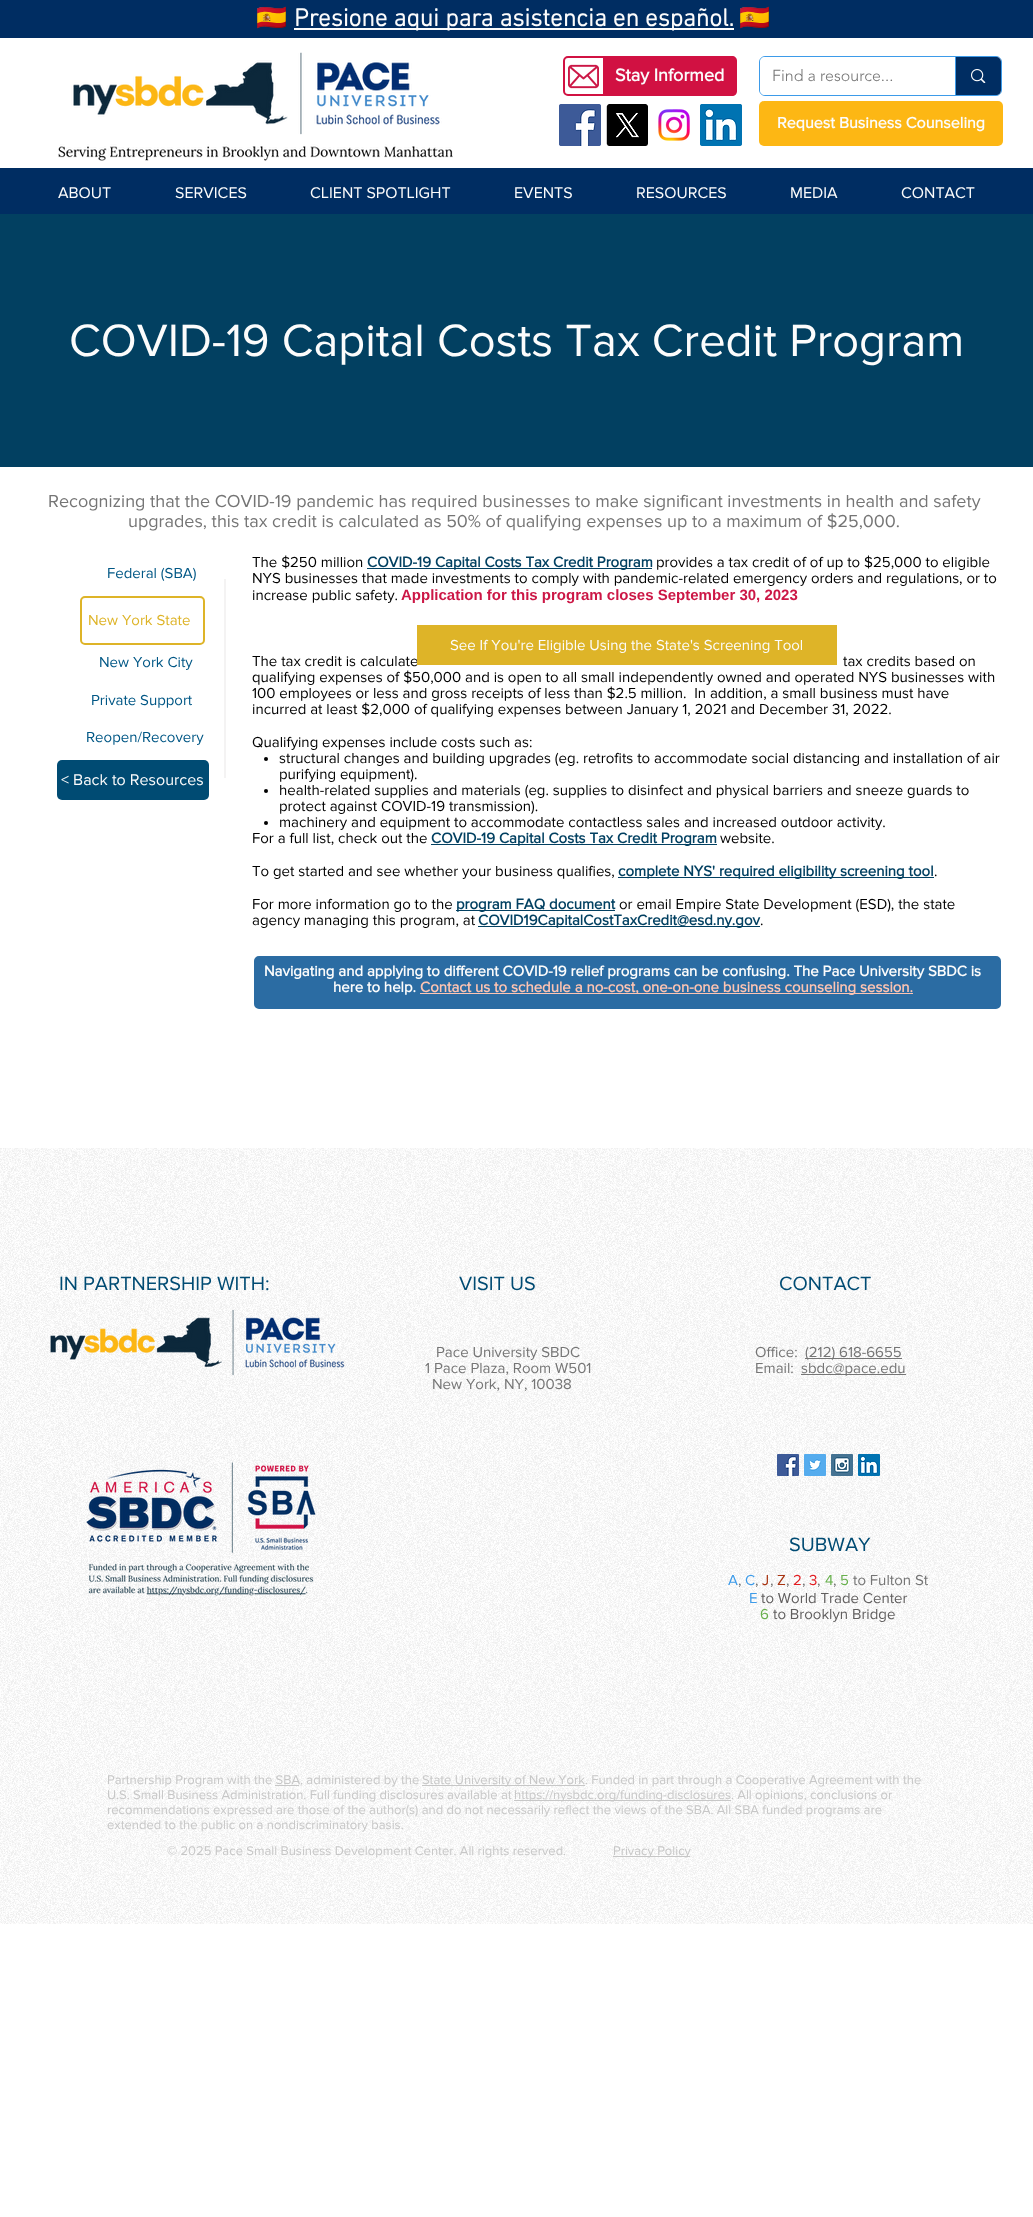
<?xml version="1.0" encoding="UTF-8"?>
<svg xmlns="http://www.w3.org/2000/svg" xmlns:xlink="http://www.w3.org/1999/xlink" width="1033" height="2217">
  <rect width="100%" height="100%" fill="#ffffff" />
  <rect width="1033" height="38" fill="#002d62" />
  <rect x="294" y="28" width="440" height="2" fill="#fcfcfc" />
  <image x="58" y="52" width="395" height="109" xlink:href="image1.png" />
  <rect x="564" y="57" width="57" height="38" rx="4" fill="none" stroke="#d11142" stroke-width="2" />
  <image x="568" y="64" width="31" height="25" xlink:href="image2.png" />
  <path d="M 603 56 h 129 c 3 0 5 2 5 5 v 30 c 0 3 -2 5 -5 5 h -129 z" fill="#d11142" />
  <rect x="759.5" y="56.5" width="242" height="39" rx="5.5" fill="none" stroke="#3d9be9" />
  <rect x="760" y="57" width="241" height="38" rx="5" fill="#ffffff" />
  <path d="M 955 57 h 41 c 3 0 5 2 5 5 v 28 c 0 3 -2 5 -5 5 h -41 z" fill="#002d62" />
  <rect x="955" y="57" width="1" height="38" fill="#3d9be9" />
  <image x="971" y="69" width="15" height="14" xlink:href="image3.png" />
  <image x="559" y="104" width="42" height="42" xlink:href="image4.png" />
  <image x="606" y="104" width="42" height="42" xlink:href="image5.png" />
  <image x="658" y="109" width="32" height="32" xlink:href="image6.png" />
  <image x="700" y="104" width="42" height="42" xlink:href="image7.png" />
  <rect x="759" y="101" width="244" height="45" rx="5" fill="#fdb714" />
  <rect y="168" width="1033" height="46" fill="#002d62" />
  <rect y="214" width="1033" height="253" fill="#024061" />
  <rect x="367" y="568" width="285" height="1" fill="#024061" />
  <circle cx="266" cy="759" r="2" fill="#000000" />
  <circle cx="266" cy="791" r="2" fill="#000000" />
  <circle cx="266" cy="823" r="2" fill="#000000" />
  <rect x="431" y="844" width="286" height="1" fill="#024061" />
  <rect x="618" y="877" width="316" height="1" fill="#024061" />
  <rect x="456" y="910" width="159" height="1" fill="#024061" />
  <rect x="478" y="926" width="282" height="1" fill="#024061" />
  <rect x="81" y="597" width="123" height="47" rx="4" fill="none" stroke="#deb428" stroke-width="2" />
  <rect x="224" y="579" width="2" height="199" fill="#f4f3f3" />
  <rect x="57" y="760" width="152" height="40" rx="5" fill="#004b73" />
  <rect x="255" y="957" width="745" height="51" rx="4" fill="#2b6ca3" stroke="#2b6ca3" stroke-width="2" />
  <rect x="420" y="993" width="493" height="1" fill="#fec4b2" />
  <image x="0" y="1148" width="1033" height="776" xlink:href="image8.png" />
  <image x="50" y="1309" width="295" height="67" xlink:href="image9.png" />
  <rect x="805" y="1358" width="97" height="1" fill="#757575" />
  <rect x="801" y="1374" width="105" height="1" fill="#757575" />
  <image x="86" y="1462" width="230" height="134" xlink:href="image10.png" />
  <image x="777" y="1454" width="22" height="22" xlink:href="image11.png" />
  <image x="804" y="1454" width="22" height="22" xlink:href="image12.png" />
  <image x="831" y="1454" width="22" height="22" xlink:href="image13.png" />
  <image x="858" y="1454" width="22" height="22" xlink:href="image14.png" />
  <rect x="275" y="1785" width="24" height="1" fill="#c7c7c7" />
  <rect x="422" y="1785" width="163" height="1" fill="#c7c7c7" />
  <rect x="514" y="1800" width="217" height="1" fill="#c7c7c7" />
  <rect x="613" y="1856" width="77" height="1" fill="#c7c7c7" />
  <text x="256" y="26" style="font-family: Noto Color Emoji; font-size: 25px; fill: #757575">🇪🇸</text>
  <text x="294" y="26" style="font-family: 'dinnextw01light'; font-size: 25px; font-weight: bold; fill: #fcfcfc">Presione aqui para asistencia en español.</text>
  <text x="739" y="26" style="font-family: Noto Color Emoji; font-size: 25px; fill: #757575">🇪🇸</text>
  <text x="615" y="81" style="font-family: 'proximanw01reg'; font-size: 18px; font-weight: bold; fill: #fcfcfc">Stay Informed</text>
  <text x="772" y="81" style="font-family: 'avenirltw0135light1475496'; font-size: 16px; font-weight: 300; fill: #757575">Find a resource...</text>
  <text x="777" y="128" style="font-family: 'proximanw01reg'; font-size: 16px; font-weight: bold; fill: #fcfcfc">Request Business Counseling</text>
  <text x="58" y="198" style="font-family: 'proximanw01reg'; font-size: 16px; fill: #fcfcfc">ABOUT</text>
  <text x="175" y="198" style="font-family: 'proximanw01reg'; font-size: 16px; fill: #fcfcfc">SERVICES</text>
  <text x="310" y="198" style="font-family: 'proximanw01reg'; font-size: 16px; fill: #fcfcfc">CLIENT SPOTLIGHT</text>
  <text x="514" y="198" style="font-family: 'proximanw01reg'; font-size: 16px; fill: #fcfcfc">EVENTS</text>
  <text x="636" y="198" style="font-family: 'proximanw01reg'; font-size: 16px; fill: #fcfcfc">RESOURCES</text>
  <text x="790" y="198" style="font-family: 'proximanw01reg'; font-size: 16px; fill: #fcfcfc">MEDIA</text>
  <text x="901" y="198" style="font-family: 'proximanw01reg'; font-size: 16px; fill: #fcfcfc">CONTACT</text>
  <text x="69" y="356" style="font-family: 'proximanw01reg'; font-size: 47px; fill: #fcfcfc">COVID-19 Capital Costs Tax Credit Program</text>
  <text x="48" y="507" style="font-family: 'proximanw01reg'; font-size: 18px; fill: #757575">Recognizing that the COVID-19 pandemic has required businesses to make significant investments in health and safety</text>
  <text x="128" y="527" style="font-family: 'proximanw01reg'; font-size: 18px; fill: #757575">upgrades, this tax credit is calculated as 50% of qualifying expenses up to a maximum of $25,000.</text>
  <text x="107" y="578" style="font-family: 'proximanw01reg'; font-size: 15px; fill: #015785">Federal (SBA)</text>
  <text x="252" y="567" style="font-family: 'proximanw01reg'; font-size: 15px; fill: #000000">The $250 million</text>
  <text x="367" y="567" style="font-family: 'proximanw01reg'; font-size: 15px; font-weight: bold; fill: #024061">COVID-19 Capital Costs Tax Credit Program</text>
  <text x="656" y="567" style="font-family: 'proximanw01reg'; font-size: 15px; fill: #000000">provides a tax credit of of up to $25,000 to eligible</text>
  <text x="252" y="583" style="font-family: 'proximanw01reg'; font-size: 15px; fill: #000000">NYS businesses that made investments to comply with pandemic-related emergency orders and regulations, or to</text>
  <text x="252" y="600" style="font-family: 'proximanw01reg'; font-size: 15px; fill: #000000">increase public safety.</text>
  <text x="401" y="600" style="font-family: Liberation Sans; font-size: 15px; font-weight: bold; fill: #cc1746">Application for this program closes September 30, 2023</text>
  <text x="252" y="666" style="font-family: 'proximanw01reg'; font-size: 15px; fill: #000000">The tax credit is calculate</text>
  <text x="843" y="666" style="font-family: 'proximanw01reg'; font-size: 15px; fill: #000000">tax credits based on</text>
  <text x="252" y="682" style="font-family: 'proximanw01reg'; font-size: 15px; fill: #000000">qualifying expenses of $50,000 and is open to all small independently owned and operated NYS businesses with</text>
  <text x="252" y="698" style="font-family: 'proximanw01reg'; font-size: 15px; fill: #000000" xml:space="preserve">100 employees or less and gross receipts of less than $2.5 million.  In addition, a small business must have</text>
  <text x="252" y="714" style="font-family: 'proximanw01reg'; font-size: 15px; fill: #000000">incurred at least $2,000 of qualifying expenses between January 1, 2021 and December 31, 2022.</text>
  <text x="252" y="747" style="font-family: 'proximanw01reg'; font-size: 15px; fill: #000000">Qualifying expenses include costs such as:</text>
  <text x="279" y="763" style="font-family: 'proximanw01reg'; font-size: 15px; fill: #000000">structural changes and building upgrades (eg. retrofits to accommodate social distancing and installation of air</text>
  <text x="279" y="779" style="font-family: 'proximanw01reg'; font-size: 15px; fill: #000000">purifying equipment).</text>
  <text x="279" y="795" style="font-family: 'proximanw01reg'; font-size: 15px; fill: #000000">health-related supplies and materials (eg. supplies to disinfect and physical barriers and sneeze guards to</text>
  <text x="279" y="811" style="font-family: 'proximanw01reg'; font-size: 15px; fill: #000000">protect against COVID-19 transmission).</text>
  <text x="279" y="827" style="font-family: 'proximanw01reg'; font-size: 15px; fill: #000000">machinery and equipment to accommodate contactless sales and increased outdoor activity.</text>
  <text x="252" y="843" style="font-family: 'proximanw01reg'; font-size: 15px; fill: #000000">For a full list, check out the</text>
  <text x="431" y="843" style="font-family: 'proximanw01reg'; font-size: 15px; font-weight: bold; fill: #024061">COVID-19 Capital Costs Tax Credit Program</text>
  <text x="720" y="843" style="font-family: 'proximanw01reg'; font-size: 15px; fill: #000000">website.</text>
  <text x="252" y="876" style="font-family: 'proximanw01reg'; font-size: 15px; fill: #000000">To get started and see whether your business qualifies,</text>
  <text x="618" y="876" style="font-family: 'proximanw01reg'; font-size: 15px; font-weight: bold; fill: #024061">complete NYS' required eligibility screening tool</text>
  <text x="934" y="876" style="font-family: 'proximanw01reg'; font-size: 15px; fill: #000000">.</text>
  <text x="252" y="909" style="font-family: 'proximanw01reg'; font-size: 15px; fill: #000000">For more information go to the</text>
  <text x="456" y="909" style="font-family: 'proximanw01reg'; font-size: 15px; font-weight: bold; fill: #024061">program FAQ document</text>
  <text x="619" y="909" style="font-family: 'proximanw01reg'; font-size: 15px; fill: #000000">or email Empire State Development (ESD), the state</text>
  <text x="252" y="925" style="font-family: 'proximanw01reg'; font-size: 15px; fill: #000000">agency managing this program, at</text>
  <text x="478" y="925" style="font-family: 'proximanw01reg'; font-size: 15px; font-weight: bold; fill: #024061">COVID19CapitalCostTaxCredit@esd.ny.gov</text>
  <text x="760" y="925" style="font-family: 'proximanw01reg'; font-size: 15px; fill: #000000">.</text>
  <text x="88" y="625" style="font-family: 'proximanw01reg'; font-size: 15px; fill: #deb428">New York State</text>
  <rect x="417" y="625" width="420" height="40" fill="#deb428" />
  <text x="450" y="650" style="font-family: 'proximanw01reg'; font-size: 15px; fill: #fcfcfc">See If You're Eligible Using the State's Screening Tool</text>
  <text x="99" y="667" style="font-family: 'proximanw01reg'; font-size: 15px; fill: #015785">New York City</text>
  <text x="91" y="705" style="font-family: 'proximanw01reg'; font-size: 15px; fill: #015785">Private Support</text>
  <text x="86" y="742" style="font-family: 'proximanw01reg'; font-size: 15px; fill: #015785">Reopen/Recovery</text>
  <text x="61" y="785" style="font-family: 'proximanw01reg'; font-size: 16px; fill: #fcfcfc">&lt; Back to Resources</text>
  <text x="264" y="976" style="font-family: 'proximanw01reg'; font-size: 15px; font-weight: bold; fill: #fcfcfc">Navigating and applying to different COVID-19 relief programs can be confusing. The Pace University SBDC is</text>
  <text x="333" y="992" style="font-family: 'proximanw01reg'; font-size: 15px; font-weight: bold; fill: #fcfcfc">here to help.</text>
  <text x="420" y="992" style="font-family: 'proximanw01reg'; font-size: 15px; font-weight: bold; fill: #fec4b2">Contact us to schedule a no-cost, one-on-one business counseling session.</text>
  <text x="59" y="1290" style="font-family: 'proximanw01reg'; font-size: 20px; fill: #004b73">IN PARTNERSHIP WITH:</text>
  <text x="459" y="1290" style="font-family: 'proximanw01reg'; font-size: 20px; fill: #004b73">VISIT US</text>
  <text x="779" y="1290" style="font-family: 'proximanw01reg'; font-size: 20px; fill: #004b73">CONTACT</text>
  <text x="436" y="1357" style="font-family: 'proximanw01reg'; font-size: 15px; fill: #757575">Pace University SBDC</text>
  <text x="425" y="1373" style="font-family: 'proximanw01reg'; font-size: 15px; fill: #757575">1 Pace Plaza, Room W501</text>
  <text x="432" y="1389" style="font-family: 'proximanw01reg'; font-size: 15px; fill: #757575">New York, NY, 10038</text>
  <text x="755" y="1357" style="font-family: 'proximanw01reg'; font-size: 15px; fill: #757575">Office:</text>
  <text x="805" y="1357" style="font-family: 'proximanw01reg'; font-size: 15px; fill: #757575">(212) 618-6655</text>
  <text x="755" y="1373" style="font-family: 'proximanw01reg'; font-size: 15px; fill: #757575">Email:</text>
  <text x="801" y="1373" style="font-family: 'proximanw01reg'; font-size: 15px; fill: #757575">sbdc@pace.edu</text>
  <text x="789" y="1551" style="font-family: 'proximanw01reg'; font-size: 20px; fill: #004b73">SUBWAY</text>
  <text x="728" y="1585" style="font-family: 'proximanw01reg'; font-size: 15px; fill: #3d9be9">A</text>
  <text x="738" y="1585" style="font-family: 'proximanw01reg'; font-size: 15px; fill: #757575">,</text>
  <text x="745" y="1585" style="font-family: 'proximanw01reg'; font-size: 15px; fill: #3d9be9">C</text>
  <text x="755" y="1585" style="font-family: 'proximanw01reg'; font-size: 15px; fill: #757575">,</text>
  <text x="762" y="1585" style="font-family: 'proximanw01reg'; font-size: 15px; fill: #a83411">J</text>
  <text x="770" y="1585" style="font-family: 'proximanw01reg'; font-size: 15px; fill: #757575">,</text>
  <text x="777" y="1585" style="font-family: 'proximanw01reg'; font-size: 15px; fill: #a83411">Z</text>
  <text x="786" y="1585" style="font-family: 'proximanw01reg'; font-size: 15px; fill: #757575">,</text>
  <text x="793" y="1585" style="font-family: 'proximanw01reg'; font-size: 15px; fill: #e21c21">2</text>
  <text x="802" y="1585" style="font-family: 'proximanw01reg'; font-size: 15px; fill: #757575">,</text>
  <text x="809" y="1585" style="font-family: 'proximanw01reg'; font-size: 15px; fill: #e21c21">3</text>
  <text x="817" y="1585" style="font-family: 'proximanw01reg'; font-size: 15px; fill: #757575">,</text>
  <text x="825" y="1585" style="font-family: 'proximanw01reg'; font-size: 15px; fill: #68b04d">4</text>
  <text x="833" y="1585" style="font-family: 'proximanw01reg'; font-size: 15px; fill: #757575">,</text>
  <text x="840" y="1585" style="font-family: 'proximanw01reg'; font-size: 15px; fill: #68b04d">5</text>
  <text x="853" y="1585" style="font-family: 'proximanw01reg'; font-size: 15px; fill: #757575">to Fulton St</text>
  <text x="749" y="1603" style="font-family: 'proximanw01reg'; font-size: 15px; fill: #3d9be9">E</text>
  <text x="761" y="1603" style="font-family: 'proximanw01reg'; font-size: 15px; fill: #605e5e">to World Trade Center</text>
  <text x="760" y="1619" style="font-family: 'proximanw01reg'; font-size: 15px; fill: #68b04d">6</text>
  <text x="773" y="1619" style="font-family: 'proximanw01reg'; font-size: 15px; fill: #605e5e">to Brooklyn Bridge</text>
  <text x="107" y="1784" style="font-family: 'proximanw01reg'; font-size: 13px; fill: #c7c7c7">Partnership Program with the SBA, administered by the</text>
  <text x="422" y="1784" style="font-family: 'proximanw01reg'; font-size: 13px; fill: #c7c7c7">State University of New York. Funded in part through a Cooperative Agreement with the</text>
  <text x="107" y="1799" style="font-family: 'proximanw01reg'; font-size: 13px; fill: #c7c7c7">U.S. Small Business Administration. Full funding disclosures available at</text>
  <text x="514" y="1799" style="font-family: 'proximanw01reg'; font-size: 13px; fill: #c7c7c7">https://nysbdc.org/funding-disclosures. All opinions, conclusions or</text>
  <text x="107" y="1814" style="font-family: 'proximanw01reg'; font-size: 13px; fill: #c7c7c7">recommendations expressed are those of the author(s) and do not necessarily reflect the views of the SBA. All SBA funded programs are</text>
  <text x="107" y="1829" style="font-family: 'proximanw01reg'; font-size: 13px; fill: #c7c7c7">extended to the public on a nondiscriminatory basis.</text>
  <text x="167" y="1855" style="font-family: 'proximanw01reg'; font-size: 13px; fill: #c7c7c7">© 2025 Pace Small Business Development Center. All rights reserved.</text>
  <text x="613" y="1855" style="font-family: 'proximanw01reg'; font-size: 13px; fill: #c7c7c7">Privacy Policy</text>
</svg>
